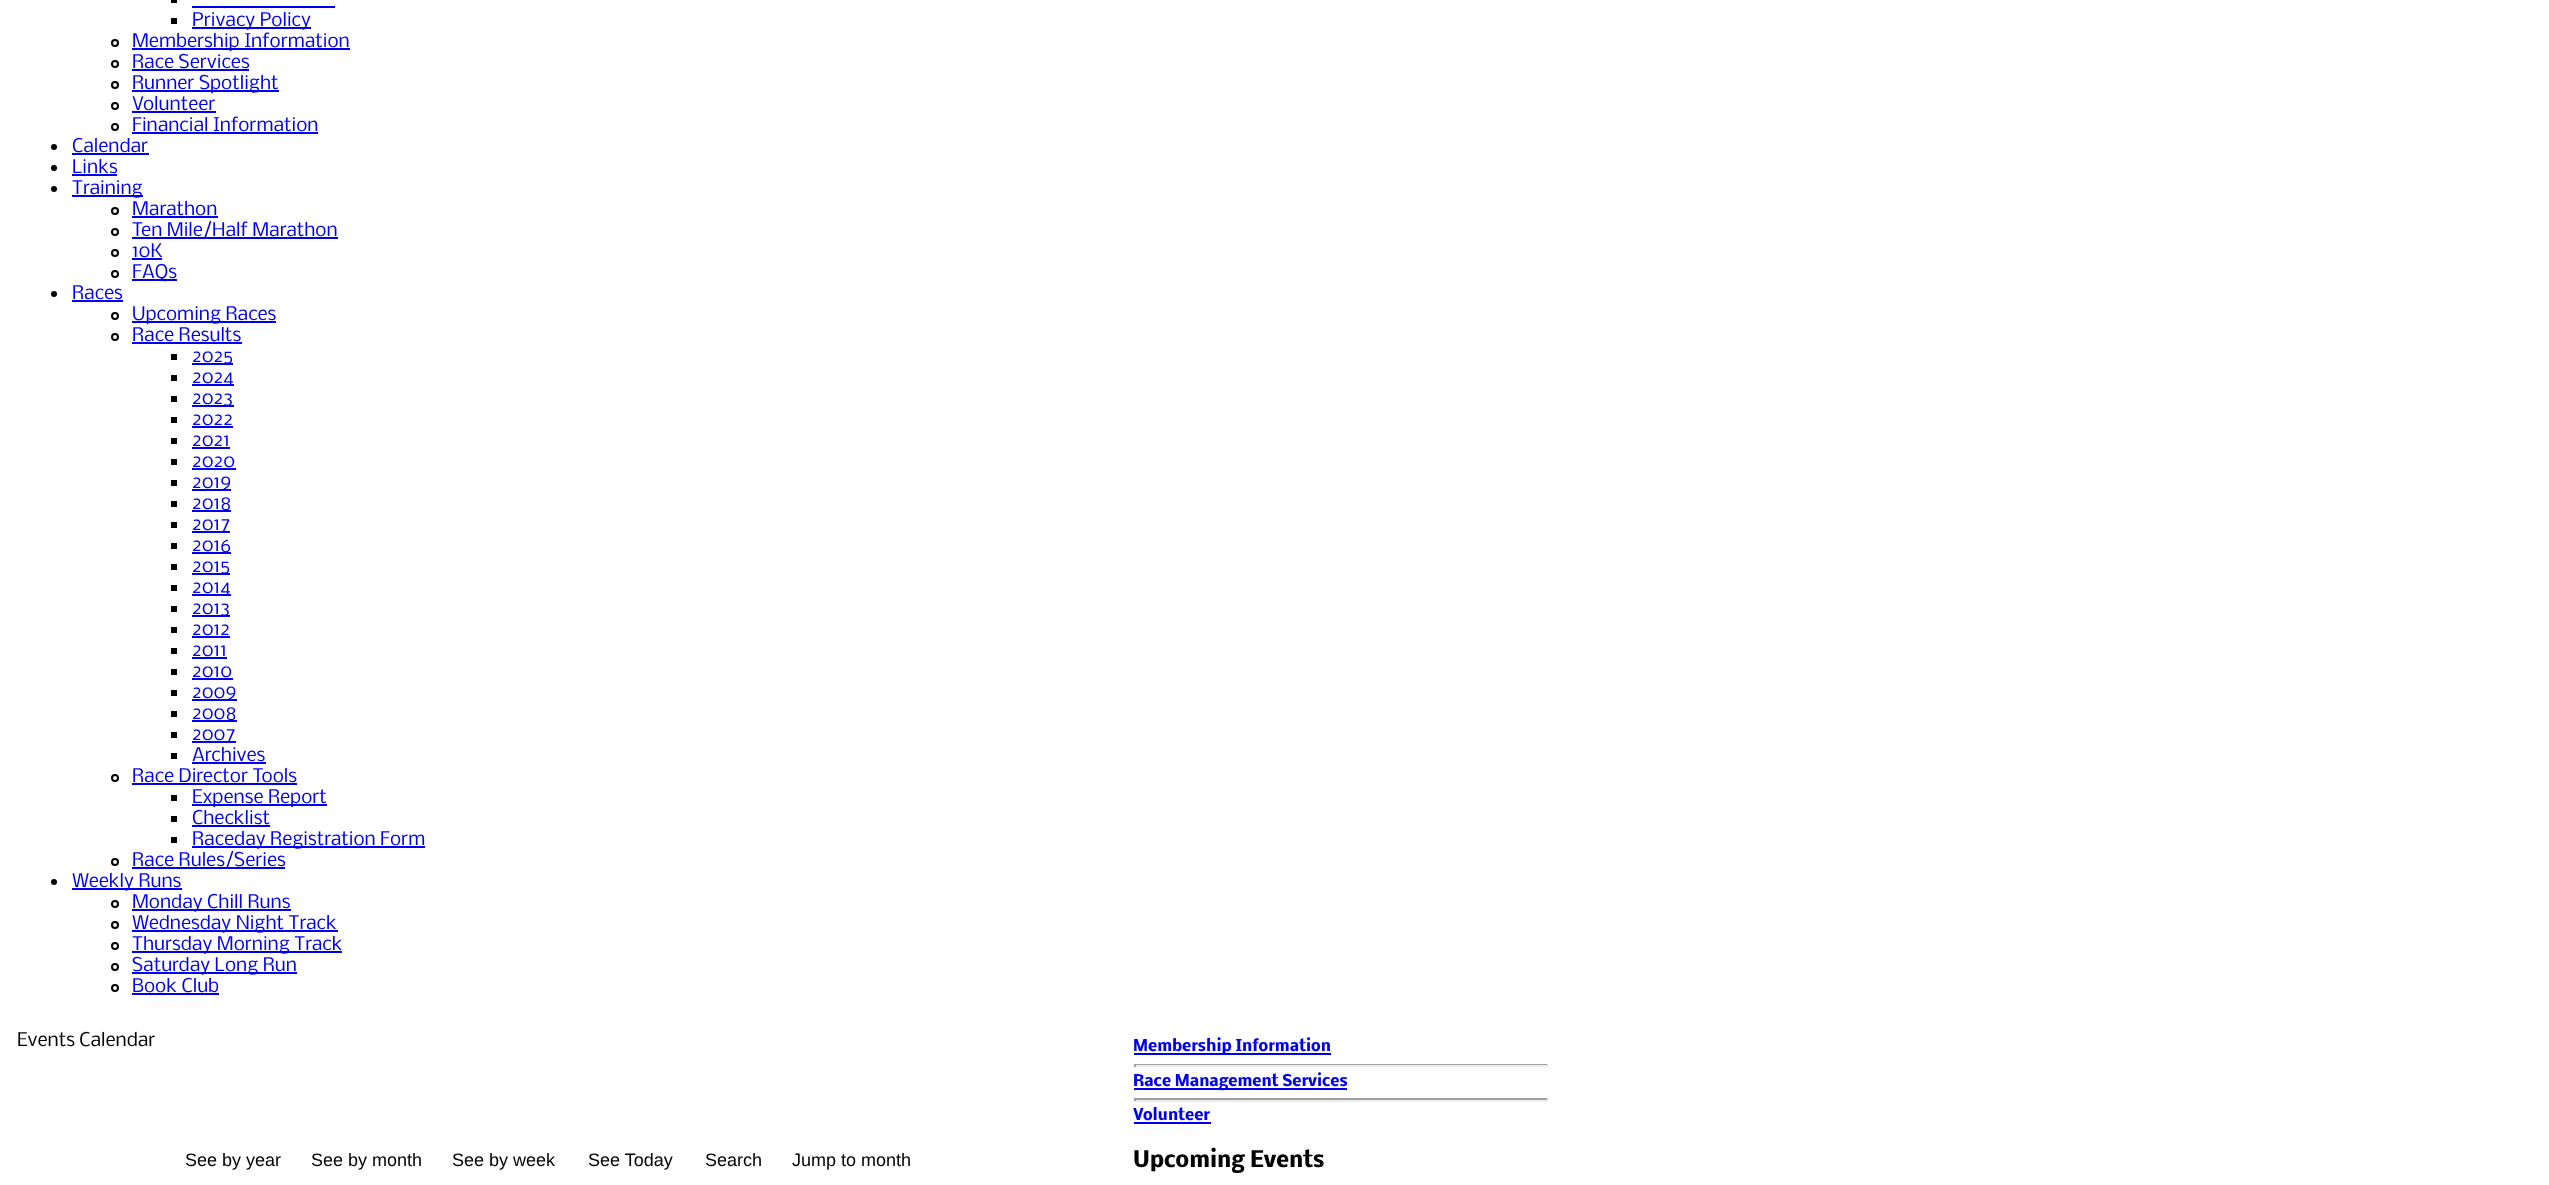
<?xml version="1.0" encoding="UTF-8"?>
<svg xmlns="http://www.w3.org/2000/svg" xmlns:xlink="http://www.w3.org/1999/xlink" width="2549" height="1185">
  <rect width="100%" height="100%" fill="#ffffff" />
  <rect x="171" width="6" height="3" fill="#000000" />
  <rect x="192" y="6" width="143" height="2" fill="#0000ee" />
  <rect x="171" y="18" width="6" height="6" fill="#000000" />
  <rect x="192" y="27" width="119" height="2" fill="#0000ee" />
  <circle cx="115" cy="43" r="3" fill="none" stroke="#000000" stroke-width="2" />
  <rect x="132" y="48" width="218" height="2" fill="#0000ee" />
  <circle cx="115" cy="64" r="3" fill="none" stroke="#000000" stroke-width="2" />
  <rect x="132" y="69" width="117" height="2" fill="#0000ee" />
  <circle cx="115" cy="85" r="3" fill="none" stroke="#000000" stroke-width="2" />
  <rect x="132" y="90" width="147" height="2" fill="#0000ee" />
  <circle cx="115" cy="106" r="3" fill="none" stroke="#000000" stroke-width="2" />
  <rect x="132" y="111" width="84" height="2" fill="#0000ee" />
  <circle cx="115" cy="127" r="3" fill="none" stroke="#000000" stroke-width="2" />
  <rect x="132" y="132" width="186" height="2" fill="#0000ee" />
  <circle cx="54" cy="147" r="3" fill="#000000" />
  <rect x="72" y="153" width="77" height="2" fill="#0000ee" />
  <circle cx="54" cy="168" r="3" fill="#000000" />
  <rect x="72" y="174" width="45" height="2" fill="#0000ee" />
  <circle cx="54" cy="189" r="3" fill="#000000" />
  <rect x="72" y="195" width="71" height="2" fill="#0000ee" />
  <circle cx="115" cy="211" r="3" fill="none" stroke="#000000" stroke-width="2" />
  <rect x="132" y="216" width="86" height="2" fill="#0000ee" />
  <circle cx="115" cy="232" r="3" fill="none" stroke="#000000" stroke-width="2" />
  <rect x="132" y="237" width="206" height="2" fill="#0000ee" />
  <circle cx="115" cy="253" r="3" fill="none" stroke="#000000" stroke-width="2" />
  <rect x="132" y="258" width="30" height="2" fill="#0000ee" />
  <circle cx="115" cy="274" r="3" fill="none" stroke="#000000" stroke-width="2" />
  <rect x="132" y="279" width="45" height="2" fill="#0000ee" />
  <circle cx="54" cy="294" r="3" fill="#000000" />
  <rect x="72" y="300" width="51" height="2" fill="#0000ee" />
  <circle cx="115" cy="316" r="3" fill="none" stroke="#000000" stroke-width="2" />
  <rect x="132" y="321" width="144" height="2" fill="#0000ee" />
  <circle cx="115" cy="337" r="3" fill="none" stroke="#000000" stroke-width="2" />
  <rect x="132" y="342" width="110" height="2" fill="#0000ee" />
  <rect x="171" y="354" width="6" height="6" fill="#000000" />
  <rect x="192" y="363" width="41" height="2" fill="#0000ee" />
  <rect x="171" y="375" width="6" height="6" fill="#000000" />
  <rect x="192" y="384" width="42" height="2" fill="#0000ee" />
  <rect x="171" y="396" width="6" height="6" fill="#000000" />
  <rect x="192" y="405" width="42" height="2" fill="#0000ee" />
  <rect x="171" y="417" width="6" height="6" fill="#000000" />
  <rect x="192" y="426" width="41" height="2" fill="#0000ee" />
  <rect x="171" y="438" width="6" height="6" fill="#000000" />
  <rect x="192" y="447" width="38" height="2" fill="#0000ee" />
  <rect x="171" y="459" width="6" height="6" fill="#000000" />
  <rect x="192" y="468" width="44" height="2" fill="#0000ee" />
  <rect x="171" y="480" width="6" height="6" fill="#000000" />
  <rect x="192" y="489" width="39" height="2" fill="#0000ee" />
  <rect x="171" y="501" width="6" height="6" fill="#000000" />
  <rect x="192" y="510" width="39" height="2" fill="#0000ee" />
  <rect x="171" y="522" width="6" height="6" fill="#000000" />
  <rect x="192" y="531" width="38" height="2" fill="#0000ee" />
  <rect x="171" y="543" width="6" height="6" fill="#000000" />
  <rect x="192" y="552" width="39" height="2" fill="#0000ee" />
  <rect x="171" y="564" width="6" height="6" fill="#000000" />
  <rect x="192" y="573" width="38" height="2" fill="#0000ee" />
  <rect x="171" y="585" width="6" height="6" fill="#000000" />
  <rect x="192" y="594" width="39" height="2" fill="#0000ee" />
  <rect x="171" y="606" width="6" height="6" fill="#000000" />
  <rect x="192" y="615" width="38" height="2" fill="#0000ee" />
  <rect x="171" y="627" width="6" height="6" fill="#000000" />
  <rect x="192" y="636" width="38" height="2" fill="#0000ee" />
  <rect x="171" y="648" width="6" height="6" fill="#000000" />
  <rect x="192" y="657" width="35" height="2" fill="#0000ee" />
  <rect x="171" y="669" width="6" height="6" fill="#000000" />
  <rect x="192" y="678" width="41" height="2" fill="#0000ee" />
  <rect x="171" y="690" width="6" height="6" fill="#000000" />
  <rect x="192" y="699" width="45" height="2" fill="#0000ee" />
  <rect x="171" y="711" width="6" height="6" fill="#000000" />
  <rect x="192" y="720" width="45" height="2" fill="#0000ee" />
  <rect x="171" y="732" width="6" height="6" fill="#000000" />
  <rect x="192" y="741" width="44" height="2" fill="#0000ee" />
  <rect x="171" y="753" width="6" height="6" fill="#000000" />
  <rect x="192" y="762" width="74" height="2" fill="#0000ee" />
  <circle cx="115" cy="778" r="3" fill="none" stroke="#000000" stroke-width="2" />
  <rect x="132" y="783" width="165" height="2" fill="#0000ee" />
  <rect x="171" y="795" width="6" height="6" fill="#000000" />
  <rect x="192" y="804" width="135" height="2" fill="#0000ee" />
  <rect x="171" y="816" width="6" height="6" fill="#000000" />
  <rect x="192" y="825" width="78" height="2" fill="#0000ee" />
  <rect x="171" y="837" width="6" height="6" fill="#000000" />
  <rect x="192" y="846" width="233" height="2" fill="#0000ee" />
  <circle cx="115" cy="862" r="3" fill="none" stroke="#000000" stroke-width="2" />
  <rect x="132" y="867" width="153" height="2" fill="#0000ee" />
  <circle cx="54" cy="882" r="3" fill="#000000" />
  <rect x="72" y="888" width="110" height="2" fill="#0000ee" />
  <circle cx="115" cy="904" r="3" fill="none" stroke="#000000" stroke-width="2" />
  <rect x="132" y="909" width="159" height="2" fill="#0000ee" />
  <circle cx="115" cy="925" r="3" fill="none" stroke="#000000" stroke-width="2" />
  <rect x="132" y="930" width="206" height="2" fill="#0000ee" />
  <circle cx="115" cy="946" r="3" fill="none" stroke="#000000" stroke-width="2" />
  <rect x="132" y="951" width="210" height="2" fill="#0000ee" />
  <circle cx="115" cy="967" r="3" fill="none" stroke="#000000" stroke-width="2" />
  <rect x="132" y="972" width="165" height="2" fill="#0000ee" />
  <circle cx="115" cy="988" r="3" fill="none" stroke="#000000" stroke-width="2" />
  <rect x="132" y="993" width="87" height="2" fill="#0000ee" />
  <rect x="1134" y="1053" width="197" height="2" fill="#0000ee" />
  <rect x="1134" y="1064" width="414" height="1" fill="#9f9f9f" />
  <rect x="1547" y="1064" width="2" height="3" fill="#eeeeee" />
  <rect x="1134" y="1065" width="414" height="2" fill="#eeeeee" />
  <rect x="1134" y="1064" width="2" height="3" fill="#9f9f9f" />
  <rect x="1134" y="1088" width="213" height="2" fill="#0000ee" />
  <rect x="1134" y="1098" width="414" height="2" fill="#9f9f9f" />
  <rect x="1547" y="1098" width="2" height="3" fill="#eeeeee" />
  <rect x="1134" y="1100" width="414" height="2" fill="#eeeeee" />
  <rect x="1134" y="1098" width="2" height="3" fill="#9f9f9f" />
  <rect x="1134" y="1122" width="77" height="2" fill="#0000ee" />
  <text x="192" y="26" style="font-family: Nobile; font-size: 18px; fill: #0000ee">Privacy Policy</text>
  <text x="132" y="47" style="font-family: Nobile; font-size: 18px; fill: #0000ee">Membership Information</text>
  <text x="132" y="68" style="font-family: Nobile; font-size: 18px; fill: #0000ee">Race Services</text>
  <text x="132" y="89" style="font-family: Nobile; font-size: 18px; fill: #0000ee">Runner Spotlight</text>
  <text x="132" y="110" style="font-family: Nobile; font-size: 18px; fill: #0000ee">Volunteer</text>
  <text x="132" y="131" style="font-family: Nobile; font-size: 18px; fill: #0000ee">Financial Information</text>
  <text x="72" y="152" style="font-family: Nobile; font-size: 18px; fill: #0000ee">Calendar</text>
  <text x="72" y="173" style="font-family: Nobile; font-size: 18px; fill: #0000ee">Links</text>
  <text x="72" y="194" style="font-family: Nobile; font-size: 18px; fill: #0000ee">Training</text>
  <text x="132" y="215" style="font-family: Nobile; font-size: 18px; fill: #0000ee">Marathon</text>
  <text x="132" y="236" style="font-family: Nobile; font-size: 18px; fill: #0000ee">Ten Mile/Half Marathon</text>
  <text x="132" y="257" style="font-family: Nobile; font-size: 18px; fill: #0000ee">10K</text>
  <text x="132" y="278" style="font-family: Nobile; font-size: 18px; fill: #0000ee">FAQs</text>
  <text x="72" y="299" style="font-family: Nobile; font-size: 18px; fill: #0000ee">Races</text>
  <text x="132" y="320" style="font-family: Nobile; font-size: 18px; fill: #0000ee">Upcoming Races</text>
  <text x="132" y="341" style="font-family: Nobile; font-size: 18px; fill: #0000ee">Race Results</text>
  <text x="192" y="362" style="font-family: Nobile; font-size: 18px; fill: #0000ee">2025</text>
  <text x="192" y="383" style="font-family: Nobile; font-size: 18px; fill: #0000ee">2024</text>
  <text x="192" y="404" style="font-family: Nobile; font-size: 18px; fill: #0000ee">2023</text>
  <text x="192" y="425" style="font-family: Nobile; font-size: 18px; fill: #0000ee">2022</text>
  <text x="192" y="446" style="font-family: Nobile; font-size: 18px; fill: #0000ee">2021</text>
  <text x="192" y="467" style="font-family: Nobile; font-size: 18px; fill: #0000ee">2020</text>
  <text x="192" y="488" style="font-family: Nobile; font-size: 18px; fill: #0000ee">2019</text>
  <text x="192" y="509" style="font-family: Nobile; font-size: 18px; fill: #0000ee">2018</text>
  <text x="192" y="530" style="font-family: Nobile; font-size: 18px; fill: #0000ee">2017</text>
  <text x="192" y="551" style="font-family: Nobile; font-size: 18px; fill: #0000ee">2016</text>
  <text x="192" y="572" style="font-family: Nobile; font-size: 18px; fill: #0000ee">2015</text>
  <text x="192" y="593" style="font-family: Nobile; font-size: 18px; fill: #0000ee">2014</text>
  <text x="192" y="614" style="font-family: Nobile; font-size: 18px; fill: #0000ee">2013</text>
  <text x="192" y="635" style="font-family: Nobile; font-size: 18px; fill: #0000ee">2012</text>
  <text x="192" y="656" style="font-family: Nobile; font-size: 18px; fill: #0000ee">2011</text>
  <text x="192" y="677" style="font-family: Nobile; font-size: 18px; fill: #0000ee">2010</text>
  <text x="192" y="698" style="font-family: Nobile; font-size: 18px; fill: #0000ee">2009</text>
  <text x="192" y="719" style="font-family: Nobile; font-size: 18px; fill: #0000ee">2008</text>
  <text x="192" y="740" style="font-family: Nobile; font-size: 18px; fill: #0000ee">2007</text>
  <text x="192" y="761" style="font-family: Nobile; font-size: 18px; fill: #0000ee">Archives</text>
  <text x="132" y="782" style="font-family: Nobile; font-size: 18px; fill: #0000ee">Race Director Tools</text>
  <text x="192" y="803" style="font-family: Nobile; font-size: 18px; fill: #0000ee">Expense Report</text>
  <text x="192" y="824" style="font-family: Nobile; font-size: 18px; fill: #0000ee">Checklist</text>
  <text x="192" y="845" style="font-family: Nobile; font-size: 18px; fill: #0000ee">Raceday Registration Form</text>
  <text x="132" y="866" style="font-family: Nobile; font-size: 18px; fill: #0000ee">Race Rules/Series</text>
  <text x="72" y="887" style="font-family: Nobile; font-size: 18px; fill: #0000ee">Weekly Runs</text>
  <text x="132" y="908" style="font-family: Nobile; font-size: 18px; fill: #0000ee">Monday Chill Runs</text>
  <text x="132" y="929" style="font-family: Nobile; font-size: 18px; fill: #0000ee">Wednesday Night Track</text>
  <text x="132" y="950" style="font-family: Nobile; font-size: 18px; fill: #0000ee">Thursday Morning Track</text>
  <text x="132" y="971" style="font-family: Nobile; font-size: 18px; fill: #0000ee">Saturday Long Run</text>
  <text x="132" y="992" style="font-family: Nobile; font-size: 18px; fill: #0000ee">Book Club</text>
  <text x="17" y="1046" style="font-family: Nobile; font-size: 18px; fill: #000000">Events Calendar</text>
  <text x="185" y="1166" style="font-family: Liberation Sans; font-size: 18px; fill: #000000">See by year</text>
  <text x="311" y="1166" style="font-family: Liberation Sans; font-size: 18px; fill: #000000">See by month</text>
  <text x="452" y="1166" style="font-family: Liberation Sans; font-size: 18px; fill: #000000">See by week</text>
  <text x="588" y="1166" style="font-family: Liberation Sans; font-size: 18px; fill: #000000">See Today</text>
  <text x="705" y="1166" style="font-family: Liberation Sans; font-size: 18px; fill: #000000">Search</text>
  <text x="792" y="1166" style="font-family: Liberation Sans; font-size: 18px; fill: #000000">Jump to month</text>
  <text x="1133" y="1051" style="font-family: Nobile; font-size: 15px; font-weight: bold; fill: #0000ee">Membership Information</text>
  <text x="1133" y="1086" style="font-family: Nobile; font-size: 15px; font-weight: bold; fill: #0000ee">Race Management Services</text>
  <text x="1133" y="1120" style="font-family: Nobile; font-size: 15px; font-weight: bold; fill: #0000ee">Volunteer</text>
  <text x="1133" y="1167" style="font-family: Nobile; font-size: 21px; font-weight: bold; fill: #000000">Upcoming Events</text>
</svg>
